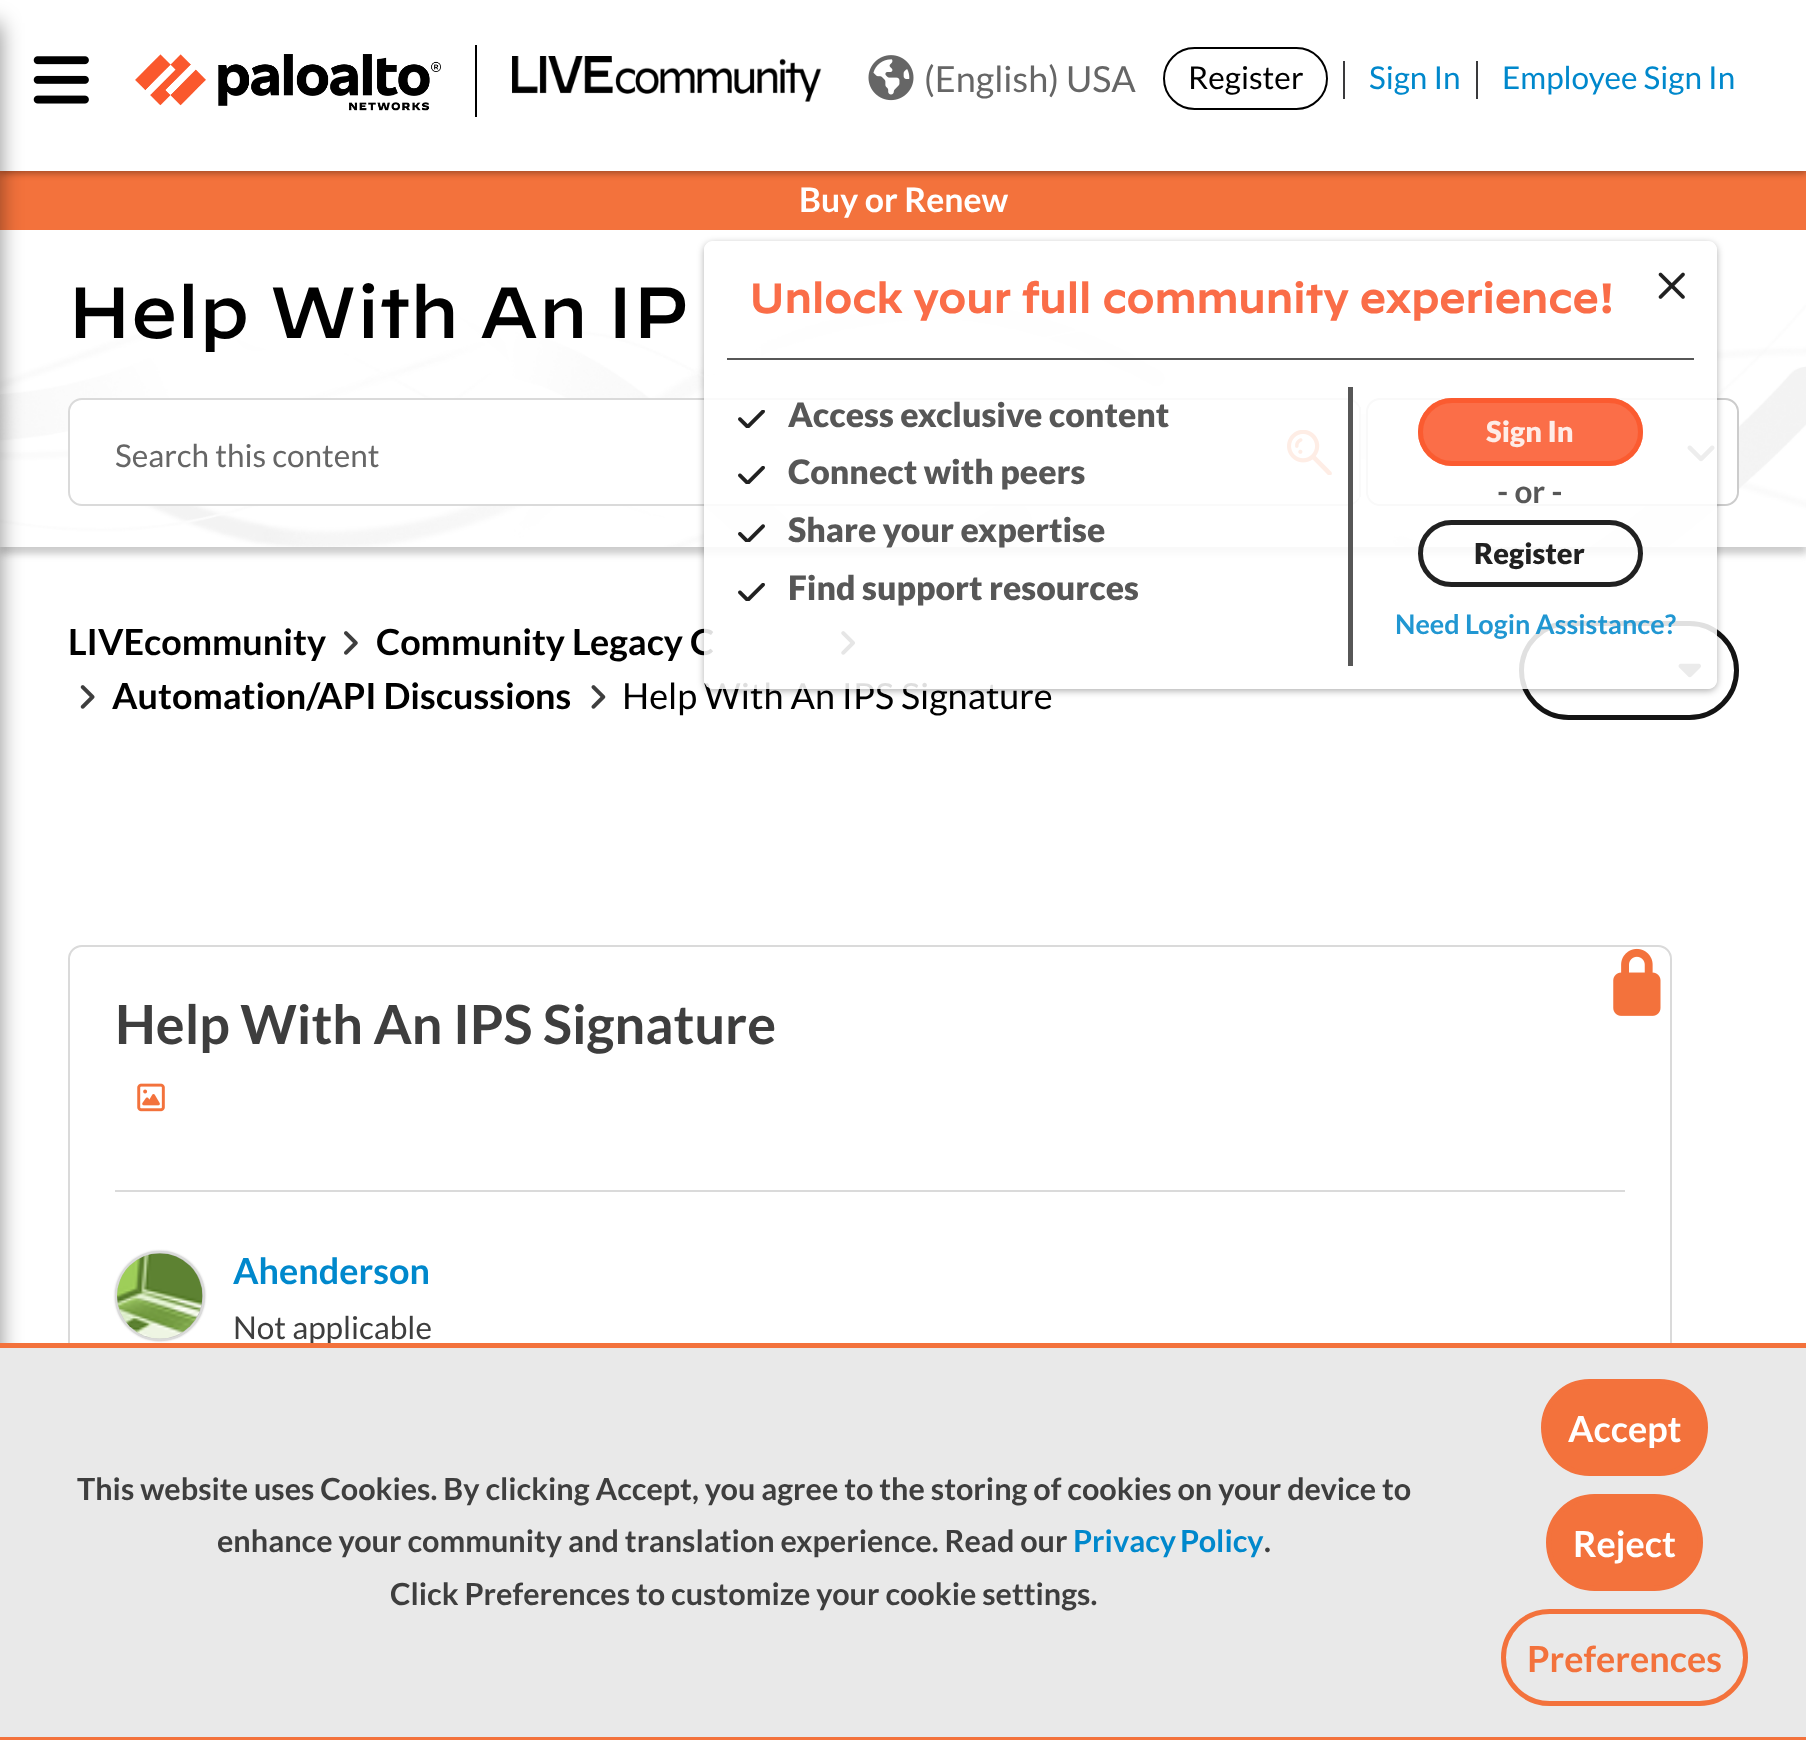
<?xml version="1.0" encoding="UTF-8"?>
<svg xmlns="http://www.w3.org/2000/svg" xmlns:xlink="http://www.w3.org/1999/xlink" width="1806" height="1740">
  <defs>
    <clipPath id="clip1"><path d="M 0 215 h 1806 v 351 h -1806 z m 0 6 h 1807 v 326 h -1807 z" clip-rule="evenodd" /></clipPath>
    <clipPath id="clip2"><path d="M 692 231 h 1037 v 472 h -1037 z m 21 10 h 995 c 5 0 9 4 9 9 v 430 c 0 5 -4 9 -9 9 h -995 c -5 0 -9 -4 -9 -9 v -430 c 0 -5 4 -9 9 -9 z" clip-rule="evenodd" /></clipPath>
  </defs>
  <rect width="100%" height="100%" fill="#ffffff" />
  <g clip-path="url(#clip1)">
    <rect y="227" width="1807" height="327" fill="#cccccc" filter="blur(3.5px)" />
  </g>
  <rect y="171" width="1806" height="59" fill="#f3723c" />
  <rect y="2" width="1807" height="171" fill="#000000" fill-opacity="0.36" filter="blur(3.5px)" />
  <rect width="1806" height="171" fill="#ffffff" />
  <image x="33" y="56" width="56" height="48" xlink:href="image1.png" />
  <image x="0" y="303" width="1806" height="244" xlink:href="image5.png" />
  <rect x="-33" y="23" width="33" height="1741" fill="#000000" fill-opacity="0.45" filter="blur(11px)" />
  <rect x="475" y="45" width="2" height="72" fill="#000000" />
  <image x="135" y="54" width="306" height="57" xlink:href="image2.png" />
  <image x="512" y="56" width="310" height="46" xlink:href="image3.png" />
  <image x="868" y="55" width="46" height="46" xlink:href="image4.png" />
  <rect x="1164" y="48" width="163" height="61" rx="30.5" fill="none" stroke="#000000" stroke-width="2" />
  <rect x="1343" y="61" width="2" height="38" fill="#3a3a3c" />
  <rect x="1476" y="61" width="2" height="38" fill="#3a3a3c" />
  <rect x="69" y="399" width="1291" height="106" rx="13" fill="#ffffff" stroke="#dadada" stroke-width="2" />
  <path d="M 1258 401 h 89 c 7.5 0 14 6.5 14 14 v 75 c 0 7.5 -6.5 14 -14 14 h -89 z" fill="#ffffff" />
  <image x="1287" y="430" width="45" height="45" xlink:href="image6.png" />
  <rect x="1359" y="407" width="2" height="90" fill="#dadada" />
  <rect x="1367" y="399" width="371" height="106" rx="13" fill="none" stroke="#cccccc" stroke-width="2" />
  <rect x="1368" y="401" width="369" height="103" rx="14" fill="#ffffff" />
  <image x="1687" y="445" width="28" height="17" xlink:href="image7.png" />
  <image x="841" y="631" width="14" height="24" xlink:href="image13.png" />
  <rect x="1521.5" y="623.5" width="215" height="94" rx="47" fill="none" stroke="#141414" stroke-width="5" />
  <image x="1678" y="663" width="23" height="15" xlink:href="image16.png" />
  <g clip-path="url(#clip2)">
    <rect x="704" y="243" width="1013" height="448" rx="9" fill="#000000" fill-opacity="0.31" filter="blur(3.5px)" />
  </g>
  <image x="344" y="631" width="14" height="24" xlink:href="image12.png" />
  <image x="80" y="685" width="15" height="24" xlink:href="image14.png" />
  <image x="591" y="685" width="15" height="24" xlink:href="image15.png" />
  <rect x="69" y="946" width="1602" height="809" rx="13" fill="none" stroke="#dadada" stroke-width="2" />
  <image x="1613" y="948" width="48" height="68" xlink:href="image17.png" />
  <rect x="115" y="1190" width="1510" height="2" fill="#dadada" />
  <image x="137" y="1083" width="28" height="29" xlink:href="image18.png" />
  <rect x="115" y="1251" width="90" height="90" rx="45" fill="#c4c4c4" filter="blur(1px)" />
  <circle cx="160" cy="1296" r="44" fill="none" stroke="#dadada" stroke-width="2" />
  <image x="117" y="1253" width="86" height="86" xlink:href="image19.png" />
  <rect y="1348" width="1806" height="389" fill="#e9e9e9" />
  <rect y="1737" width="1806" height="3" fill="#f3723c" />
  <rect x="1543.5" y="1381.5" width="162" height="92" rx="46" fill="#f3723c" stroke="#f3723c" stroke-width="5" />
  <rect x="1548.5" y="1496.5" width="152" height="92" rx="46" fill="#f3723c" stroke="#f3723c" stroke-width="5" />
  <rect x="1503.5" y="1611.5" width="242" height="92" rx="46" fill="none" stroke="#f3723c" stroke-width="5" />
  <text x="924" y="92" style="font-family: Lato; font-size: 36px; fill: #666666">(English) USA</text>
  <text x="1188" y="89" style="font-family: Lato; font-size: 31.5px; fill: #000000">Register</text>
  <text x="1369" y="89" style="font-family: Lato; font-size: 31.5px; fill: #0088cc">Sign In</text>
  <text x="1502" y="89" style="font-family: Lato; font-size: 31.5px; fill: #0088cc">Employee Sign In</text>
  <text x="799" y="212" style="font-family: Lato; font-size: 33.75px; font-weight: bold; fill: #ffffff">Buy or Renew</text>
  <text x="68" y="338" style="font-family: 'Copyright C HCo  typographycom'; font-size: 72px; font-weight: 300; fill: #000000">Help With An IP</text>
  <text x="115" y="467" style="font-family: Lato; font-size: 31.5px; fill: #666666">Search this content</text>
  <text x="68" y="655" style="font-family: Lato; font-size: 36px; font-weight: bold; fill: #000000">LIVEcommunity</text>
  <text x="376" y="655" style="font-family: Lato; font-size: 36px; font-weight: bold; fill: #000000">Community Legacy C</text>
  <text x="112" y="709" style="font-family: Lato; font-size: 36px; font-weight: bold; fill: #000000">Automation/API Discussions</text>
  <text x="622" y="709" style="font-family: Lato; font-size: 36px; fill: #000000">Help With An IPS Signature</text>
  <rect x="704" y="241" width="1013" height="448" rx="9" fill="#ffffff" fill-opacity="0.87" />
  <image x="1658" y="272" width="27" height="27" xlink:href="image8.png" />
  <text x="749" y="313" style="font-family: 'Copyright C HCo  typographycom'; font-size: 40.5px; font-weight: bold; fill: #fa6d48">Unlock your full community experience!</text>
  <text x="1395" y="634" style="font-family: Lato; font-size: 27px; font-weight: bold; fill: #2197d2">Need Login Assistance?</text>
  <rect x="1420.5" y="522.5" width="220" height="62" rx="31" fill="none" stroke="#000000" stroke-opacity="0.87" stroke-width="5" />
  <text x="1474" y="564" style="font-family: Lato; font-size: 29px; font-weight: 900; fill: #212121">Register</text>
  <text x="1497" y="503" style="font-family: Lato; font-size: 31.5px; font-weight: bold; fill: #575757">- or -</text>
  <rect x="1418" y="398" width="225" height="68" rx="34" fill="#fa582d" fill-opacity="0.87" />
  <rect x="1420.5" y="400.5" width="220" height="63" rx="31.5" fill="none" stroke="#fa582d" stroke-opacity="0.87" stroke-width="5" />
  <text x="1486" y="442" style="font-family: Lato; font-size: 29px; font-weight: 900; fill: #feece7">Sign In</text>
  <text x="788" y="600" style="font-family: Lato; font-size: 33.75px; font-weight: 900; fill: #575757">Find support resources</text>
  <image x="738" y="583" width="27" height="18" xlink:href="image10.png" />
  <text x="788" y="542" style="font-family: Lato; font-size: 33.75px; font-weight: 900; fill: #575757">Share your expertise</text>
  <image x="738" y="524" width="27" height="18" xlink:href="image11.png" />
  <text x="788" y="484" style="font-family: Lato; font-size: 33.75px; font-weight: 900; fill: #575757">Connect with peers</text>
  <image x="738" y="466" width="27" height="18" xlink:href="image10.png" />
  <text x="788" y="427" style="font-family: Lato; font-size: 33.75px; font-weight: 900; fill: #575757">Access exclusive content</text>
  <image x="738" y="410" width="27" height="18" xlink:href="image9.png" />
  <rect x="1348" y="387" width="5" height="279" fill="#3e3e3e" fill-opacity="0.87" />
  <rect x="727" y="358" width="967" height="2" fill="#575757" />
  <text x="115" y="1044" style="font-family: Lato; font-size: 54px; font-weight: bold; fill: #3e3e3e">Help With An IPS Signature</text>
  <text x="233" y="1284" style="font-family: Lato; font-size: 36px; font-weight: bold; fill: #0088cc">Ahenderson</text>
  <text x="233" y="1339" style="font-family: Lato; font-size: 31.5px; fill: #3e3e3e">Not applicable</text>
  <rect y="1343" width="1806" height="5" fill="#f3723c" />
  <text x="77" y="1500" style="font-family: Lato; font-size: 30.6px; font-weight: bold; fill: #3e3e3e">This website uses Cookies. By clicking Accept, you agree to the storing of cookies on your device to</text>
  <text x="217" y="1552" style="font-family: Lato; font-size: 30.6px; font-weight: bold; fill: #3e3e3e">enhance your community and translation experience. Read our</text>
  <text x="1073" y="1552" word-spacing="-2" style="font-family: Lato; font-size: 30.6px; font-weight: bold; fill: #0088cc">Privacy Policy</text>
  <text x="1264" y="1552" style="font-family: Lato; font-size: 30.6px; font-weight: bold; fill: #3e3e3e">.</text>
  <text x="390" y="1605" style="font-family: Lato; font-size: 30.6px; font-weight: bold; fill: #3e3e3e">Click Preferences to customize your cookie settings.</text>
  <text x="1568" y="1442" style="font-family: Lato; font-size: 36px; font-weight: bold; fill: #ffffff">Accept</text>
  <text x="1573" y="1557" style="font-family: Lato; font-size: 36px; font-weight: bold; fill: #ffffff">Reject</text>
  <text x="1527" y="1672" style="font-family: Lato; font-size: 36px; font-weight: bold; fill: #f3723c">Preferences</text>
</svg>
